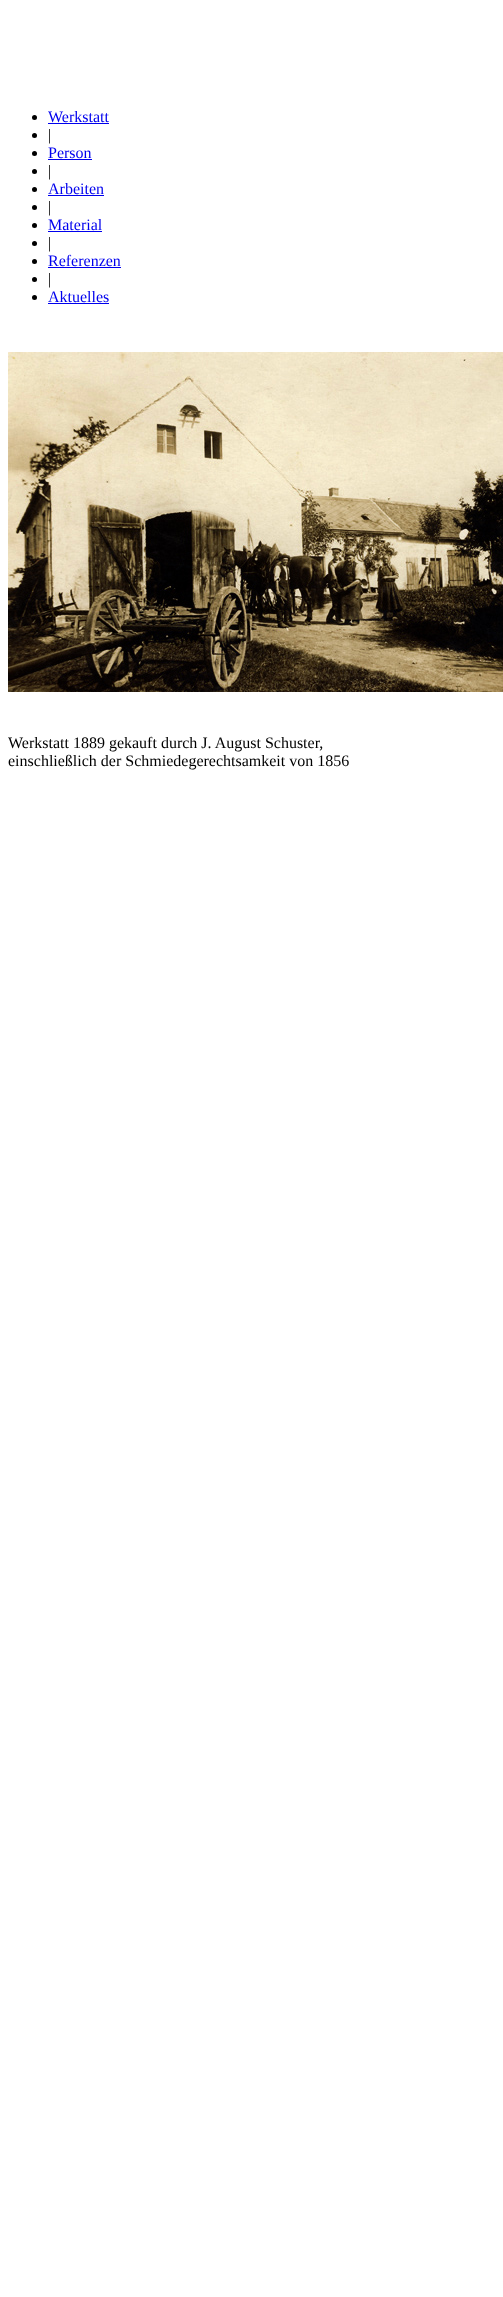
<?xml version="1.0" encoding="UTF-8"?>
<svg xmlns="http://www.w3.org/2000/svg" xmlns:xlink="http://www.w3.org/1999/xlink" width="503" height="2297">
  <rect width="100%" height="100%" fill="#ffffff" />
  <circle cx="34.5" cy="117.5" r="2.5" fill="#000000" />
  <rect x="48" y="123" width="61" height="1" fill="#0000ee" />
  <circle cx="34.5" cy="135.5" r="2.5" fill="#000000" />
  <circle cx="34.5" cy="153.5" r="2.5" fill="#000000" />
  <rect x="48" y="159" width="44" height="1" fill="#0000ee" />
  <circle cx="34.5" cy="171.5" r="2.5" fill="#000000" />
  <circle cx="34.5" cy="189.5" r="2.5" fill="#000000" />
  <rect x="48" y="195" width="56" height="1" fill="#0000ee" />
  <circle cx="34.5" cy="207.5" r="2.5" fill="#000000" />
  <circle cx="34.5" cy="225.5" r="2.5" fill="#000000" />
  <rect x="48" y="231" width="54" height="1" fill="#0000ee" />
  <circle cx="34.5" cy="243.5" r="2.5" fill="#000000" />
  <circle cx="34.5" cy="261.5" r="2.5" fill="#000000" />
  <rect x="48" y="267" width="73" height="1" fill="#0000ee" />
  <circle cx="34.5" cy="279.5" r="2.5" fill="#000000" />
  <circle cx="34.5" cy="297.5" r="2.5" fill="#000000" />
  <rect x="48" y="303" width="61" height="1" fill="#0000ee" />
  <image x="8" y="352" width="495" height="340" xlink:href="image1.png" />
  <text x="48" y="122" style="font-family: Liberation Serif; font-size: 16px; fill: #0000ee">Werkstatt</text>
  <text x="48" y="140" style="font-family: Liberation Serif; font-size: 16px; fill: #000000">|</text>
  <text x="48" y="158" style="font-family: Liberation Serif; font-size: 16px; fill: #0000ee">Person</text>
  <text x="48" y="176" style="font-family: Liberation Serif; font-size: 16px; fill: #000000">|</text>
  <text x="48" y="194" style="font-family: Liberation Serif; font-size: 16px; fill: #0000ee">Arbeiten</text>
  <text x="48" y="212" style="font-family: Liberation Serif; font-size: 16px; fill: #000000">|</text>
  <text x="48" y="230" style="font-family: Liberation Serif; font-size: 16px; fill: #0000ee">Material</text>
  <text x="48" y="248" style="font-family: Liberation Serif; font-size: 16px; fill: #000000">|</text>
  <text x="48" y="266" style="font-family: Liberation Serif; font-size: 16px; fill: #0000ee">Referenzen</text>
  <text x="48" y="284" style="font-family: Liberation Serif; font-size: 16px; fill: #000000">|</text>
  <text x="48" y="302" style="font-family: Liberation Serif; font-size: 16px; fill: #0000ee">Aktuelles</text>
  <text x="8" y="748" style="font-family: Liberation Serif; font-size: 16px; fill: #000000">Werkstatt 1889 gekauft durch J. August Schuster,</text>
  <text x="8" y="766" style="font-family: Liberation Serif; font-size: 16px; fill: #000000">einschließlich der Schmiedegerechtsamkeit von 1856</text>
</svg>
